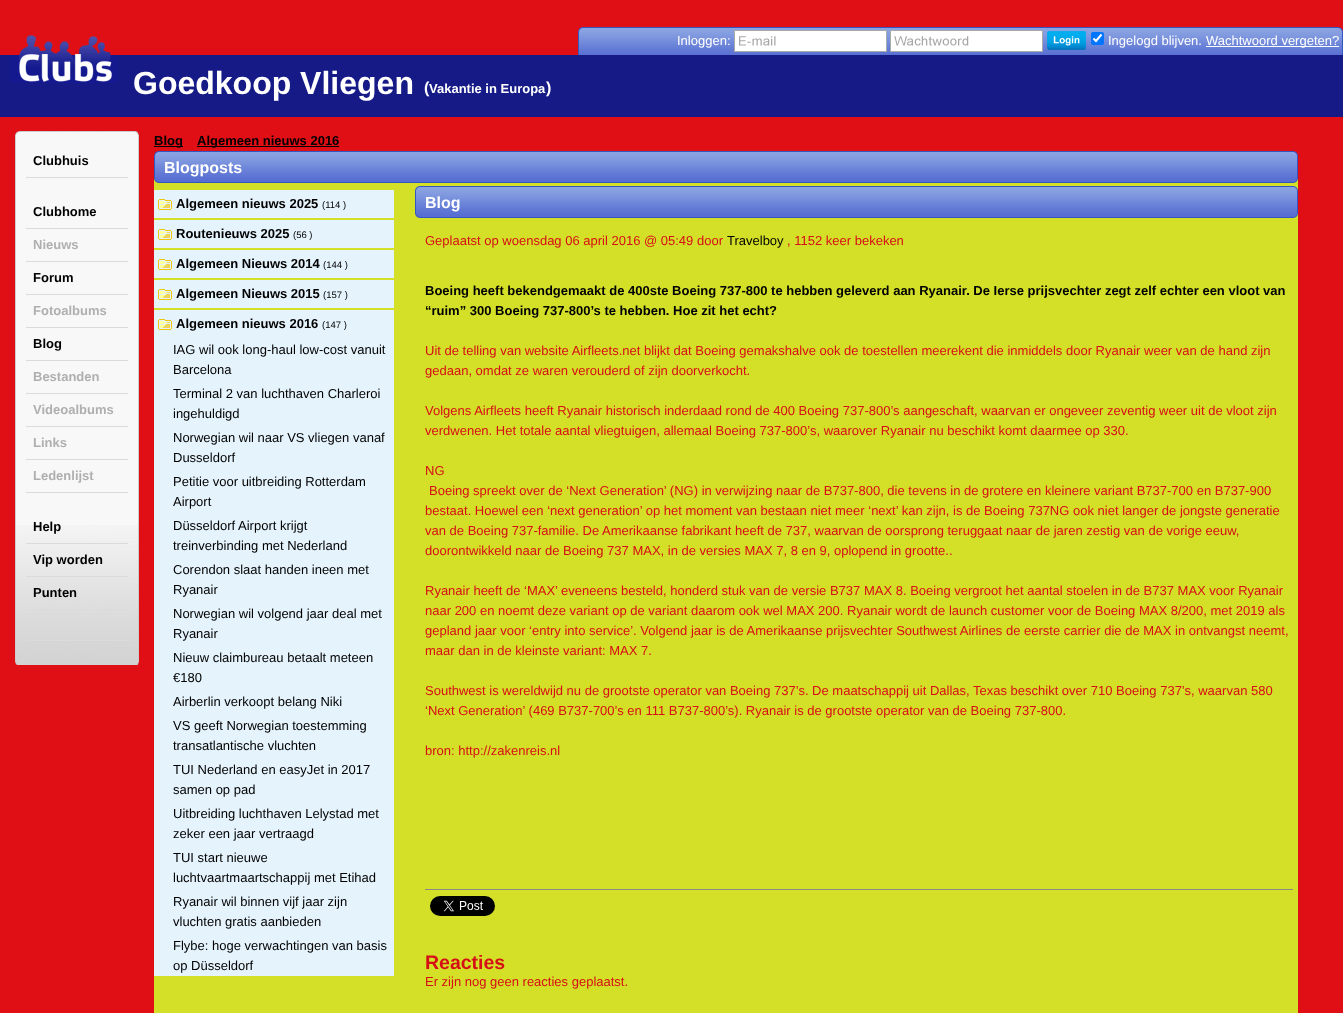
<?xml version="1.0" encoding="UTF-8"?>
<svg xmlns="http://www.w3.org/2000/svg" xmlns:xlink="http://www.w3.org/1999/xlink" width="1343" height="1013">
  <rect width="100%" height="100%" fill="#e00f16" />
  <rect y="55" width="1343" height="62" fill="#161a87" />
  <image x="10" y="35" width="108" height="48" xlink:href="image1.png" />
  <image x="578" y="27" width="4" height="28" xlink:href="image2.png" />
  <image x="582" y="27" width="757" height="28" xlink:href="image3.png" />
  <rect x="735" y="31" width="151" height="20" fill="#ffffff" />
  <image x="739" y="36" width="37" height="10" xlink:href="image4.png" />
  <rect x="734.5" y="30.5" width="152" height="21" fill="none" stroke="#aaaaaa" />
  <rect x="891" y="31" width="151" height="20" fill="#ffffff" />
  <image x="894" y="36" width="75" height="10" xlink:href="image5.png" />
  <rect x="890.5" y="30.5" width="152" height="21" fill="none" stroke="#aaaaaa" />
  <image x="1047" y="31" width="39" height="19" xlink:href="image6.png" />
  <rect x="1091" y="32" width="13" height="13" rx="2" fill="#0075ff" />
  <path d="M 1093.5 38.5 l 2.5 2.5 l 5.5 -6.5" fill="none" stroke="#ffffff" stroke-width="2.1" />
  <rect x="1206" y="46" width="133" height="1" fill="#ffffff" />
  <image x="1339" y="27" width="4" height="28" xlink:href="image7.png" />
  <image x="15" y="131" width="124" height="4" xlink:href="image8.png" />
  <rect x="16" y="135" width="122" height="390" fill="#f8f8f8" />
  <image x="16" y="525" width="122" height="136" xlink:href="image9.png" />
  <rect x="138" y="135" width="1" height="526" fill="#cccccc" />
  <rect x="15" y="135" width="1" height="526" fill="#cccccc" />
  <rect x="26" y="177" width="102" height="1" fill="#dcdada" />
  <rect x="26" y="228" width="102" height="1" fill="#dcdada" />
  <rect x="26" y="261" width="102" height="1" fill="#dcdada" />
  <rect x="26" y="294" width="102" height="1" fill="#dcdada" />
  <rect x="26" y="327" width="102" height="1" fill="#dcdada" />
  <rect x="26" y="360" width="102" height="1" fill="#dcdada" />
  <rect x="26" y="393" width="102" height="1" fill="#dcdada" />
  <rect x="26" y="426" width="102" height="1" fill="#dcdada" />
  <rect x="26" y="459" width="102" height="1" fill="#dcdada" />
  <rect x="26" y="492" width="102" height="1" fill="#dcdada" />
  <rect x="26" y="543" width="102" height="1" fill="#dcdada" />
  <rect x="26" y="576" width="102" height="1" fill="#dcdada" />
  <rect x="26" y="609" width="102" height="1" fill="#dcdada" />
  <rect x="26" y="640" width="102" height="1" fill="#dcdada" />
  <image x="15" y="661" width="124" height="4" xlink:href="image10.png" />
  <rect x="154" y="146" width="29" height="1" fill="#000000" />
  <rect x="197" y="146" width="142" height="1" fill="#000000" />
  <rect x="154" y="179" width="1144" height="834" fill="#d4e028" />
  <image x="154" y="151" width="4" height="32" xlink:href="image11.png" />
  <image x="158" y="151" width="1136" height="32" xlink:href="image12.png" />
  <image x="1294" y="151" width="4" height="32" xlink:href="image13.png" />
  <rect x="154" y="190" width="240" height="28" fill="#e5f3fc" />
  <image x="158" y="199" width="14" height="11" xlink:href="image14.png" />
  <rect x="154" y="220" width="240" height="28" fill="#e5f3fc" />
  <image x="158" y="229" width="14" height="11" xlink:href="image14.png" />
  <rect x="154" y="250" width="240" height="28" fill="#e5f3fc" />
  <image x="158" y="259" width="14" height="11" xlink:href="image14.png" />
  <rect x="154" y="280" width="240" height="28" fill="#e5f3fc" />
  <image x="158" y="289" width="14" height="11" xlink:href="image14.png" />
  <rect x="154" y="310" width="240" height="666" fill="#e5f3fc" />
  <image x="158" y="319" width="14" height="11" xlink:href="image14.png" />
  <image x="415" y="186" width="4" height="32" xlink:href="image15.png" />
  <image x="419" y="186" width="875" height="32" xlink:href="image16.png" />
  <image x="1294" y="186" width="4" height="32" xlink:href="image17.png" />
  <rect x="425" y="889" width="868" height="1" fill="#8a8a8a" />
  <image x="430" y="896" width="65" height="20" xlink:href="image18.png" />
  <text x="677" y="45" style="font-family: Liberation Sans; font-size: 13px; fill: #ffffff">Inloggen:</text>
  <text x="1108" y="45" style="font-family: Liberation Sans; font-size: 13px; fill: #ffffff">Ingelogd blijven.</text>
  <text x="1206" y="45" style="font-family: Liberation Sans; font-size: 13px; fill: #ffffff">Wachtwoord vergeten?</text>
  <text x="133" y="94" style="font-family: Liberation Sans; font-size: 32px; font-weight: bold; fill: #ffffff">Goedkoop Vliegen</text>
  <text x="424" y="93" style="font-family: Liberation Sans; font-size: 16px; font-weight: bold; fill: #ffffff">(</text>
  <text x="429" y="93" style="font-family: Liberation Sans; font-size: 13px; font-weight: bold; fill: #ffffff">Vakantie in Europa</text>
  <text x="546" y="93" style="font-family: Liberation Sans; font-size: 16px; font-weight: bold; fill: #ffffff">)</text>
  <text x="33" y="165" style="font-family: Liberation Sans; font-size: 13px; font-weight: bold; fill: #000000">Clubhuis</text>
  <text x="33" y="216" style="font-family: Liberation Sans; font-size: 13px; font-weight: bold; fill: #000000">Clubhome</text>
  <text x="33" y="249" style="font-family: Liberation Sans; font-size: 13px; font-weight: bold; fill: #afafaf">Nieuws</text>
  <text x="33" y="282" style="font-family: Liberation Sans; font-size: 13px; font-weight: bold; fill: #000000">Forum</text>
  <text x="33" y="315" style="font-family: Liberation Sans; font-size: 13px; font-weight: bold; fill: #afafaf">Fotoalbums</text>
  <text x="33" y="348" style="font-family: Liberation Sans; font-size: 13px; font-weight: bold; fill: #000000">Blog</text>
  <text x="33" y="381" style="font-family: Liberation Sans; font-size: 13px; font-weight: bold; fill: #afafaf">Bestanden</text>
  <text x="33" y="414" style="font-family: Liberation Sans; font-size: 13px; font-weight: bold; fill: #afafaf">Videoalbums</text>
  <text x="33" y="447" style="font-family: Liberation Sans; font-size: 13px; font-weight: bold; fill: #afafaf">Links</text>
  <text x="33" y="480" style="font-family: Liberation Sans; font-size: 13px; font-weight: bold; fill: #afafaf">Ledenlijst</text>
  <text x="33" y="531" style="font-family: Liberation Sans; font-size: 13px; font-weight: bold; fill: #000000">Help</text>
  <text x="33" y="564" style="font-family: Liberation Sans; font-size: 13px; font-weight: bold; fill: #000000">Vip worden</text>
  <text x="33" y="597" style="font-family: Liberation Sans; font-size: 13px; font-weight: bold; fill: #000000">Punten</text>
  <text x="154" y="145" style="font-family: Liberation Sans; font-size: 13px; font-weight: bold; fill: #000000">Blog</text>
  <text x="197" y="145" style="font-family: Liberation Sans; font-size: 13px; font-weight: bold; fill: #000000">Algemeen nieuws 2016</text>
  <text x="164" y="173" style="font-family: Liberation Sans; font-size: 16px; font-weight: bold; fill: #ffffff">Blogposts</text>
  <text x="176" y="208" style="font-family: Liberation Sans; font-size: 13px; font-weight: bold; fill: #000000">Algemeen nieuws 2025</text>
  <text x="322" y="208" style="font-family: Liberation Sans; font-size: 9.5px; fill: #000000">(114 )</text>
  <text x="176" y="238" style="font-family: Liberation Sans; font-size: 13px; font-weight: bold; fill: #000000">Routenieuws 2025</text>
  <text x="293" y="238" style="font-family: Liberation Sans; font-size: 9.5px; fill: #000000">(56 )</text>
  <text x="176" y="268" style="font-family: Liberation Sans; font-size: 13px; font-weight: bold; fill: #000000">Algemeen Nieuws 2014</text>
  <text x="323" y="268" style="font-family: Liberation Sans; font-size: 9.5px; fill: #000000">(144 )</text>
  <text x="176" y="298" style="font-family: Liberation Sans; font-size: 13px; font-weight: bold; fill: #000000">Algemeen Nieuws 2015</text>
  <text x="323" y="298" style="font-family: Liberation Sans; font-size: 9.5px; fill: #000000">(157 )</text>
  <text x="176" y="328" style="font-family: Liberation Sans; font-size: 13px; font-weight: bold; fill: #000000">Algemeen nieuws 2016</text>
  <text x="322" y="328" style="font-family: Liberation Sans; font-size: 9.5px; fill: #000000">(147 )</text>
  <text x="173" y="354" style="font-family: Liberation Sans; font-size: 13px; fill: #000000">IAG wil ook long-haul low-cost vanuit</text>
  <text x="173" y="374" style="font-family: Liberation Sans; font-size: 13px; fill: #000000">Barcelona</text>
  <text x="173" y="398" style="font-family: Liberation Sans; font-size: 13px; fill: #000000">Terminal 2 van luchthaven Charleroi</text>
  <text x="173" y="418" style="font-family: Liberation Sans; font-size: 13px; fill: #000000">ingehuldigd</text>
  <text x="173" y="442" style="font-family: Liberation Sans; font-size: 13px; fill: #000000">Norwegian wil naar VS vliegen vanaf</text>
  <text x="173" y="462" style="font-family: Liberation Sans; font-size: 13px; fill: #000000">Dusseldorf</text>
  <text x="173" y="486" style="font-family: Liberation Sans; font-size: 13px; fill: #000000">Petitie voor uitbreiding Rotterdam</text>
  <text x="173" y="506" style="font-family: Liberation Sans; font-size: 13px; fill: #000000">Airport</text>
  <text x="173" y="530" style="font-family: Liberation Sans; font-size: 13px; fill: #000000">Düsseldorf Airport krijgt</text>
  <text x="173" y="550" style="font-family: Liberation Sans; font-size: 13px; fill: #000000">treinverbinding met Nederland</text>
  <text x="173" y="574" style="font-family: Liberation Sans; font-size: 13px; fill: #000000">Corendon slaat handen ineen met</text>
  <text x="173" y="594" style="font-family: Liberation Sans; font-size: 13px; fill: #000000">Ryanair</text>
  <text x="173" y="618" style="font-family: Liberation Sans; font-size: 13px; fill: #000000">Norwegian wil volgend jaar deal met</text>
  <text x="173" y="638" style="font-family: Liberation Sans; font-size: 13px; fill: #000000">Ryanair</text>
  <text x="173" y="662" style="font-family: Liberation Sans; font-size: 13px; fill: #000000">Nieuw claimbureau betaalt meteen</text>
  <text x="173" y="682" style="font-family: Liberation Sans; font-size: 13px; fill: #000000">€180</text>
  <text x="173" y="706" style="font-family: Liberation Sans; font-size: 13px; fill: #000000">Airberlin verkoopt belang Niki</text>
  <text x="173" y="730" style="font-family: Liberation Sans; font-size: 13px; fill: #000000">VS geeft Norwegian toestemming</text>
  <text x="173" y="750" style="font-family: Liberation Sans; font-size: 13px; fill: #000000">transatlantische vluchten</text>
  <text x="173" y="774" style="font-family: Liberation Sans; font-size: 13px; fill: #000000">TUI Nederland en easyJet in 2017</text>
  <text x="173" y="794" style="font-family: Liberation Sans; font-size: 13px; fill: #000000">samen op pad</text>
  <text x="173" y="818" style="font-family: Liberation Sans; font-size: 13px; fill: #000000">Uitbreiding luchthaven Lelystad met</text>
  <text x="173" y="838" style="font-family: Liberation Sans; font-size: 13px; fill: #000000">zeker een jaar vertraagd</text>
  <text x="173" y="862" style="font-family: Liberation Sans; font-size: 13px; fill: #000000">TUI start nieuwe</text>
  <text x="173" y="882" style="font-family: Liberation Sans; font-size: 13px; fill: #000000">luchtvaartmaartschappij met Etihad</text>
  <text x="173" y="906" style="font-family: Liberation Sans; font-size: 13px; fill: #000000">Ryanair wil binnen vijf jaar zijn</text>
  <text x="173" y="926" style="font-family: Liberation Sans; font-size: 13px; fill: #000000">vluchten gratis aanbieden</text>
  <text x="173" y="950" style="font-family: Liberation Sans; font-size: 13px; fill: #000000">Flybe: hoge verwachtingen van basis</text>
  <text x="173" y="970" style="font-family: Liberation Sans; font-size: 13px; fill: #000000">op Düsseldorf</text>
  <text x="425" y="208" style="font-family: Liberation Sans; font-size: 16px; font-weight: bold; fill: #ffffff">Blog</text>
  <text x="425" y="245" style="font-family: Liberation Sans; font-size: 13px; fill: #d60e15">Geplaatst op woensdag 06 april 2016 @ 05:49 door</text>
  <text x="727" y="245" style="font-family: Liberation Sans; font-size: 13px; fill: #000000">Travelboy</text>
  <text x="787" y="245" style="font-family: Liberation Sans; font-size: 13px; fill: #d60e15">, 1152 keer bekeken</text>
  <text x="425" y="295" style="font-family: Liberation Sans; font-size: 13px; font-weight: bold; fill: #000000">Boeing heeft bekendgemaakt de 400ste Boeing 737-800 te hebben geleverd aan Ryanair. De Ierse prijsvechter zegt zelf echter een vloot van</text>
  <text x="425" y="315" style="font-family: Liberation Sans; font-size: 13px; font-weight: bold; fill: #000000">“ruim” 300 Boeing 737-800’s te hebben. Hoe zit het echt?</text>
  <text x="425" y="355" style="font-family: Liberation Sans; font-size: 13px; fill: #d60e15">Uit de telling van website Airfleets.net blijkt dat Boeing gemakshalve ook de toestellen meerekent die inmiddels door Ryanair weer van de hand zijn</text>
  <text x="425" y="375" style="font-family: Liberation Sans; font-size: 13px; fill: #d60e15">gedaan, omdat ze waren verouderd of zijn doorverkocht.</text>
  <text x="425" y="415" style="font-family: Liberation Sans; font-size: 13px; fill: #d60e15">Volgens Airfleets heeft Ryanair historisch inderdaad rond de 400 Boeing 737-800’s aangeschaft, waarvan er ongeveer zeventig weer uit de vloot zijn</text>
  <text x="425" y="435" style="font-family: Liberation Sans; font-size: 13px; fill: #d60e15">verdwenen. Het totale aantal vliegtuigen, allemaal Boeing 737-800’s, waarover Ryanair nu beschikt komt daarmee op 330.</text>
  <text x="425" y="475" style="font-family: Liberation Sans; font-size: 13px; fill: #d60e15">NG</text>
  <text x="429" y="495" style="font-family: Liberation Sans; font-size: 13px; fill: #d60e15">Boeing spreekt over de ‘Next Generation’ (NG) in verwijzing naar de B737-800, die tevens in de grotere en kleinere variant B737-700 en B737-900</text>
  <text x="425" y="515" style="font-family: Liberation Sans; font-size: 13px; fill: #d60e15">bestaat. Hoewel een ‘next generation’ op het moment van bestaan niet meer ‘next’ kan zijn, is de Boeing 737NG ook niet langer de jongste generatie</text>
  <text x="425" y="535" style="font-family: Liberation Sans; font-size: 13px; fill: #d60e15">van de Boeing 737-familie. De Amerikaanse fabrikant heeft de 737, waarvan de oorsprong teruggaat naar de jaren zestig van de vorige eeuw,</text>
  <text x="425" y="555" style="font-family: Liberation Sans; font-size: 13px; fill: #d60e15">doorontwikkeld naar de Boeing 737 MAX, in de versies MAX 7, 8 en 9, oplopend in grootte..</text>
  <text x="425" y="595" style="font-family: Liberation Sans; font-size: 13px; fill: #d60e15">Ryanair heeft de ‘MAX’ eveneens besteld, honderd stuk van de versie B737 MAX 8. Boeing vergroot het aantal stoelen in de B737 MAX voor Ryanair</text>
  <text x="425" y="615" style="font-family: Liberation Sans; font-size: 13px; fill: #d60e15">naar 200 en noemt deze variant op de variant daarom ook wel MAX 200. Ryanair wordt de launch customer voor de Boeing MAX 8/200, met 2019 als</text>
  <text x="425" y="635" style="font-family: Liberation Sans; font-size: 13px; fill: #d60e15">gepland jaar voor ‘entry into service’. Volgend jaar is de Amerikaanse prijsvechter Southwest Airlines de eerste carrier die de MAX in ontvangst neemt,</text>
  <text x="425" y="655" style="font-family: Liberation Sans; font-size: 13px; fill: #d60e15">maar dan in de kleinste variant: MAX 7.</text>
  <text x="425" y="695" style="font-family: Liberation Sans; font-size: 13px; fill: #d60e15">Southwest is wereldwijd nu de grootste operator van Boeing 737’s. De maatschappij uit Dallas, Texas beschikt over 710 Boeing 737’s, waarvan 580</text>
  <text x="425" y="715" style="font-family: Liberation Sans; font-size: 13px; fill: #d60e15">‘Next Generation’ (469 B737-700’s en 111 B737-800’s). Ryanair is de grootste operator van de Boeing 737-800.</text>
  <text x="425" y="755" style="font-family: Liberation Sans; font-size: 13px; fill: #d60e15">bron: http://zakenreis.nl</text>
  <text x="425" y="969" style="font-family: Liberation Sans; font-size: 19.5px; font-weight: bold; fill: #d60e15">Reacties</text>
  <text x="425" y="986" style="font-family: Liberation Sans; font-size: 13px; fill: #d60e15">Er zijn nog geen reacties geplaatst.</text>
</svg>
